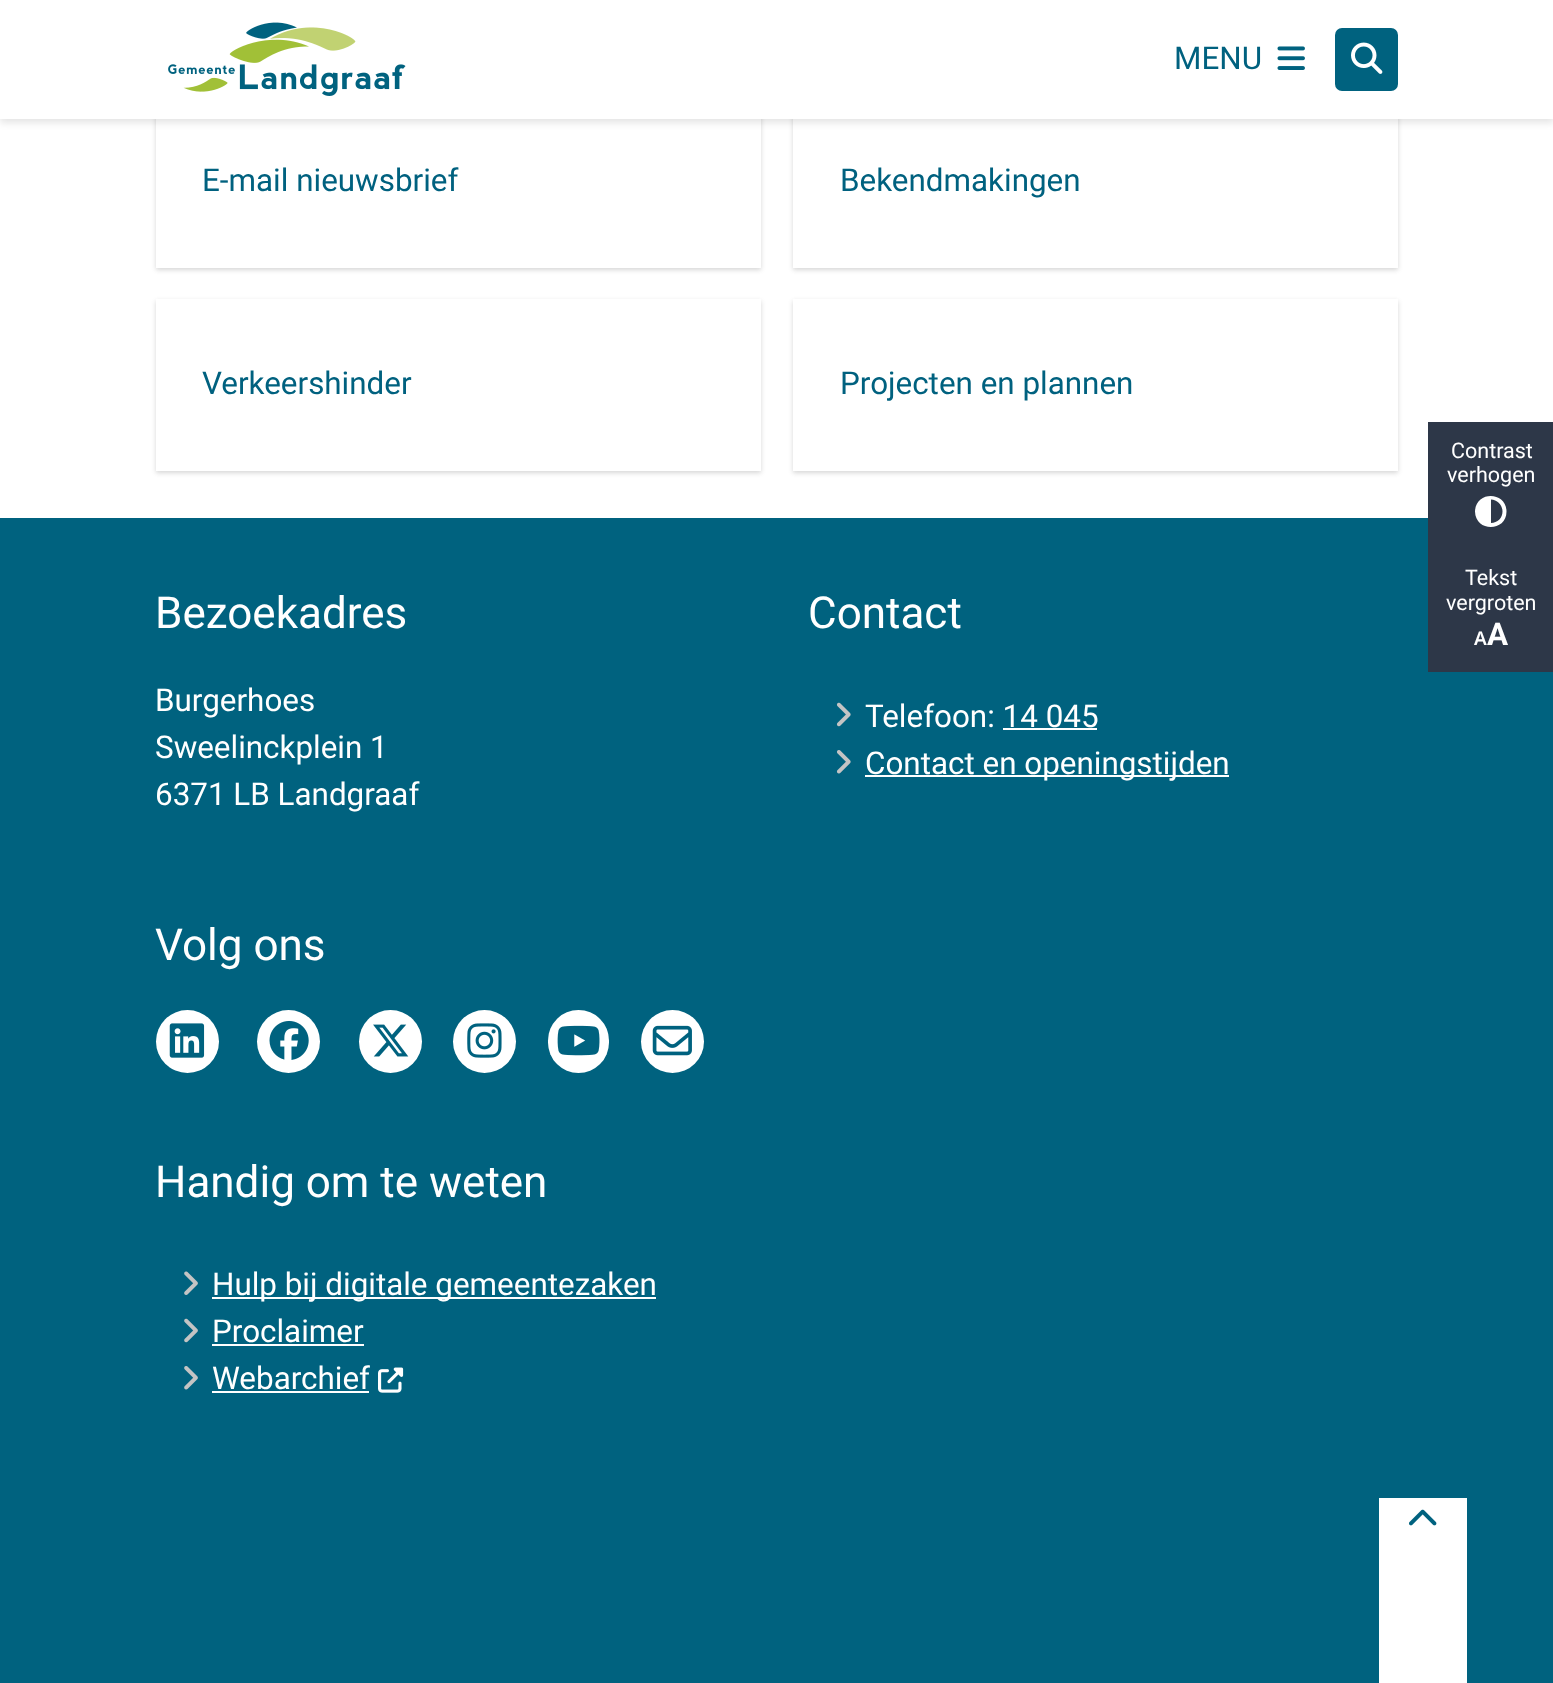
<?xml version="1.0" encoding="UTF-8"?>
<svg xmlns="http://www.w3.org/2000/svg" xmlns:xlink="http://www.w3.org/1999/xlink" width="1553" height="1683">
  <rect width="100%" height="100%" fill="#ffffff" />
  <rect x="156" y="96" width="605" height="174" fill="#000000" fill-opacity="0.06" filter="blur(2px)" />
  <rect x="156" y="96" width="605" height="174" fill="#000000" fill-opacity="0.1" filter="blur(2.5px)" />
  <rect x="156" y="119" width="605" height="149" fill="#ffffff" />
  <rect x="793" y="96" width="605" height="174" fill="#000000" fill-opacity="0.06" filter="blur(2px)" />
  <rect x="793" y="96" width="605" height="174" fill="#000000" fill-opacity="0.1" filter="blur(2.5px)" />
  <rect x="793" y="119" width="605" height="149" fill="#ffffff" />
  <rect y="4" width="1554" height="119" fill="#000000" fill-opacity="0.1" filter="blur(3.5px)" />
  <rect width="1553" height="119" fill="#ffffff" />
  <image x="168" y="22" width="238" height="74" xlink:href="image1.png" />
  <image x="1277" y="46" width="28" height="24" xlink:href="image2.png" />
  <rect x="1335" y="28" width="63" height="63" rx="7" fill="#00627f" />
  <image x="1351" y="42" width="32" height="32" xlink:href="image3.png" />
  <rect x="156" y="301" width="605" height="172" fill="#000000" fill-opacity="0.06" filter="blur(2px)" />
  <rect x="156" y="301" width="605" height="172" fill="#000000" fill-opacity="0.1" filter="blur(2.5px)" />
  <rect x="156" y="299" width="605" height="172" fill="#ffffff" />
  <rect x="793" y="301" width="605" height="172" fill="#000000" fill-opacity="0.06" filter="blur(2px)" />
  <rect x="793" y="301" width="605" height="172" fill="#000000" fill-opacity="0.1" filter="blur(2.5px)" />
  <rect x="793" y="299" width="605" height="172" fill="#ffffff" />
  <rect y="518" width="1553" height="1165" fill="#00627f" />
  <image x="836" y="702" width="15" height="25" xlink:href="image4.png" />
  <rect x="1003" y="728" width="94" height="2" fill="#ffffff" />
  <image x="836" y="750" width="15" height="24" xlink:href="image5.png" />
  <rect x="865" y="775" width="364" height="2" fill="#ffffff" />
  <circle cx="187.5" cy="1041.5" r="31.5" fill="#ffffff" />
  <image x="169" y="1023" width="36" height="35" xlink:href="image6.png" />
  <circle cx="288.5" cy="1041.5" r="31.5" fill="#ffffff" />
  <image x="269" y="1020" width="40" height="40" xlink:href="image7.png" />
  <circle cx="390.5" cy="1041.5" r="31.5" fill="#ffffff" />
  <image x="373" y="1024" width="36" height="33" xlink:href="image8.png" />
  <circle cx="484.5" cy="1041.5" r="31.5" fill="#ffffff" />
  <image x="467" y="1023" width="35" height="35" xlink:href="image9.png" />
  <rect x="548" y="1010" width="61" height="63" rx="30.5" fill="#ffffff" />
  <image x="557" y="1025" width="43" height="31" xlink:href="image10.png" />
  <circle cx="672.5" cy="1041.5" r="31.5" fill="#ffffff" />
  <image x="652" y="1025" width="40" height="31" xlink:href="image11.png" />
  <image x="184" y="1271" width="14" height="24" xlink:href="image12.png" />
  <rect x="212" y="1297" width="444" height="2" fill="#ffffff" />
  <image x="184" y="1318" width="14" height="25" xlink:href="image13.png" />
  <rect x="212" y="1344" width="152" height="2" fill="#ffffff" />
  <image x="184" y="1366" width="14" height="24" xlink:href="image14.png" />
  <rect x="212" y="1391" width="157" height="2" fill="#ffffff" />
  <image x="378" y="1367" width="26" height="26" xlink:href="image15.png" />
  <rect x="1379" y="1498" width="88" height="185" fill="#ffffff" />
  <image x="1409" y="1509" width="28" height="17" xlink:href="image16.png" />
  <rect x="1428" y="422" width="125" height="250" fill="#2d3748" />
  <path d="M 1502.5 511.5 c 0 -6.5 -5 -11.5 -11.5 -12 v 23.5 c 6.5 0 11.5 -5 11.5 -11.5 z m -27.5 0 c 0.5 -21 31.5 -20.5 31.5 0 c 0 20.5 -31 21 -31.5 0 z" fill="#ffffff" />
  <text x="1174" y="69" style="font-family: Roboto; font-size: 31.4px; fill: #00617f">MENU</text>
  <text x="202" y="191" style="font-family: Roboto; font-size: 31.4px; fill: #00617f">E-mail nieuwsbrief</text>
  <text x="840" y="191" style="font-family: Roboto; font-size: 31.4px; fill: #00617f">Bekendmakingen</text>
  <text x="202" y="394" style="font-family: Roboto; font-size: 31.4px; fill: #00617f">Verkeershinder</text>
  <text x="840" y="394" style="font-family: Roboto; font-size: 31.4px; fill: #00617f">Projecten en plannen</text>
  <text x="155" y="628" style="font-family: Roboto; font-size: 44px; fill: #ffffff">Bezoekadres</text>
  <text x="155" y="711" style="font-family: Roboto; font-size: 31.4px; fill: #ffffff">Burgerhoes</text>
  <text x="155" y="758" style="font-family: Roboto; font-size: 31.4px; fill: #ffffff">Sweelinckplein 1</text>
  <text x="155" y="805" style="font-family: Roboto; font-size: 31.4px; fill: #ffffff">6371 LB Landgraaf</text>
  <text x="808" y="628" style="font-family: Roboto; font-size: 44px; fill: #ffffff">Contact</text>
  <text x="865" y="727" style="font-family: Roboto; font-size: 31.4px; fill: #ffffff">Telefoon: 14 045</text>
  <text x="865" y="774" style="font-family: Roboto; font-size: 31.4px; fill: #ffffff">Contact en openingstijden</text>
  <text x="155" y="960" style="font-family: Roboto; font-size: 44px; fill: #ffffff">Volg ons</text>
  <text x="155" y="1197" style="font-family: Roboto; font-size: 44px; fill: #ffffff">Handig om te weten</text>
  <text x="212" y="1295" style="font-family: Roboto; font-size: 31.4px; fill: #ffffff">Hulp bij digitale gemeentezaken</text>
  <text x="212" y="1342" style="font-family: Roboto; font-size: 31.4px; fill: #ffffff">Proclaimer</text>
  <text x="212" y="1389" style="font-family: Roboto; font-size: 31.4px; fill: #ffffff">Webarchief</text>
  <text x="1451" y="458" style="font-family: Roboto; font-size: 21.5px; fill: #ffffff">Contrast</text>
  <text x="1447" y="482" style="font-family: Roboto; font-size: 21.5px; fill: #ffffff">verhogen</text>
  <text x="1465" y="585" style="font-family: Roboto; font-size: 21.5px; fill: #ffffff">Tekst</text>
  <text x="1446" y="610" style="font-family: Roboto; font-size: 21.5px; fill: #ffffff">vergroten</text>
  <text x="1474" y="645" style="font-family: Noto Sans; font-size: 19px; font-weight: 600; fill: #ffffff">A</text>
  <text x="1487" y="645" style="font-family: Roboto; font-size: 31.4px; font-weight: bold; fill: #ffffff">A</text>
</svg>
